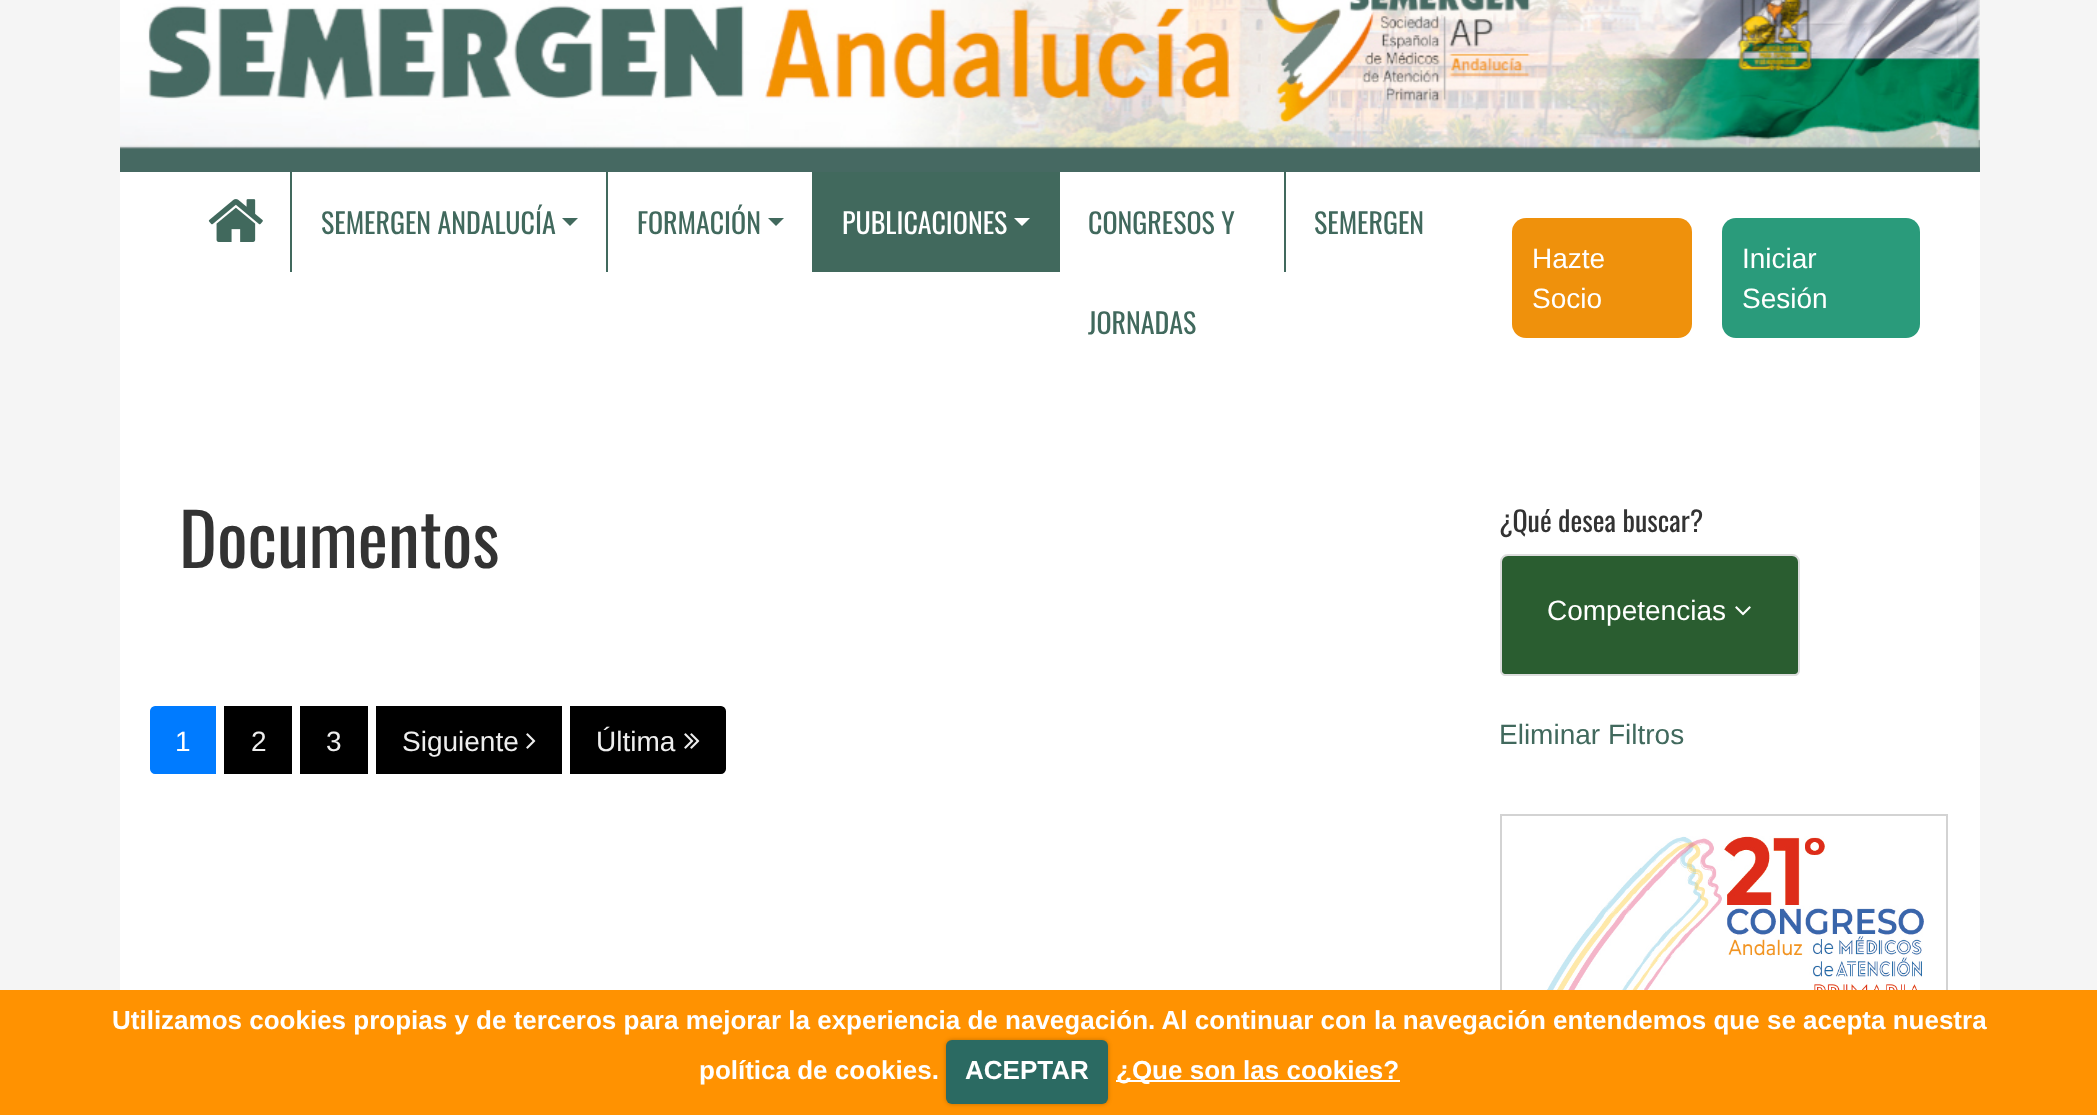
<?xml version="1.0" encoding="UTF-8"?>
<svg xmlns="http://www.w3.org/2000/svg" xmlns:xlink="http://www.w3.org/1999/xlink" width="2097" height="1115">
  <rect width="100%" height="100%" fill="#f5f5f5" />
  <image x="120" y="0" width="1860" height="172" xlink:href="image1.png" />
  <rect x="120" y="172" width="1860" height="818" fill="#ffffff" />
  <image x="208" y="199" width="55" height="43" xlink:href="image2.png" />
  <rect x="290" y="172" width="2" height="100" fill="#41695d" />
  <path d="M 562 218 h 16 l -8 8 z" fill="#41695d" />
  <rect x="606" y="172" width="2" height="100" fill="#41695d" />
  <path d="M 768 218 h 16 l -8 8 z" fill="#41695d" />
  <rect x="812" y="172" width="248" height="100" fill="#41695d" />
  <path d="M 1014 218 h 16 l -8 8 z" fill="#ffffff" />
  <rect x="1284" y="172" width="2" height="100" fill="#41695d" />
  <rect x="1512" y="218" width="180" height="120" rx="14" fill="#ef910c" />
  <rect x="1722" y="218" width="198" height="120" rx="14" fill="#2a9b7b" />
  <path d="M 155 707 h 60 v 66 h -60 c -2 0 -4 -2 -4 -4 v -58 c 0 -2 2 -4 4 -4 z" fill="#007bff" stroke="#007bff" stroke-width="2" />
  <rect x="224" y="706" width="68" height="68" fill="#000000" />
  <rect x="300" y="706" width="68" height="68" fill="#000000" />
  <rect x="376" y="706" width="186" height="68" fill="#000000" />
  <image x="526" y="733" width="10" height="16" xlink:href="image3.png" />
  <path d="M 571 707 h 150 c 2 0 4 2 4 4 v 58 c 0 2 -2 4 -4 4 h -150 z" fill="#000000" stroke="#000000" stroke-width="2" />
  <image x="684" y="733" width="16" height="16" xlink:href="image4.png" />
  <path d="M 1508 555 h 284 c 4 0 7 3 7 7 v 109 c 0 2 -2 4 -4 4 h -290 c -2 0 -4 -2 -4 -4 v -109 c 0 -4 3 -7 7 -7 z" fill="#2a5d30" stroke="#dddddd" stroke-width="2" />
  <image x="1735" y="606" width="16" height="10" xlink:href="image5.png" />
  <rect x="1501" y="815" width="446" height="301" fill="none" stroke="#d3d3d3" stroke-width="2" />
  <image x="1502" y="836" width="422" height="154" xlink:href="image6.png" />
  <rect y="990" width="2097" height="125" fill="#ff9201" />
  <rect x="946" y="1040" width="162" height="64" rx="6" fill="#000000" fill-opacity="0.25" filter="blur(2px)" />
  <rect x="946" y="1040" width="162" height="64" rx="6" fill="#2b6a62" />
  <rect x="1116" y="1080" width="284" height="2" fill="#ffffff" />
  <text x="321" y="234" style="font-family: Oswald; font-size: 28px; fill: #41695d">SEMERGEN ANDALUCÍA</text>
  <text x="637" y="234" style="font-family: Oswald; font-size: 28px; fill: #41695d">FORMACIÓN</text>
  <text x="842" y="234" style="font-family: Oswald; font-size: 28px; fill: #ffffff">PUBLICACIONES</text>
  <text x="1088" y="234" style="font-family: Oswald; font-size: 28px; fill: #41695d">CONGRESOS Y</text>
  <text x="1088" y="334" style="font-family: Oswald; font-size: 28px; fill: #41695d">JORNADAS</text>
  <text x="1314" y="234" style="font-family: Oswald; font-size: 28px; fill: #41695d">SEMERGEN</text>
  <text x="1532" y="268" style="font-family: Liberation Sans; font-size: 28px; fill: #ffffff">Hazte</text>
  <text x="1532" y="308" style="font-family: Liberation Sans; font-size: 28px; fill: #ffffff">Socio</text>
  <text x="1742" y="268" style="font-family: Liberation Sans; font-size: 28px; fill: #ffffff">Iniciar</text>
  <text x="1742" y="308" style="font-family: Liberation Sans; font-size: 28px; fill: #ffffff">Sesión</text>
  <text x="179" y="568" style="font-family: Oswald; font-size: 72px; fill: #333333">Documentos</text>
  <text x="175" y="751" style="font-family: Liberation Sans; font-size: 28px; fill: #ffffff">1</text>
  <text x="251" y="751" style="font-family: Liberation Sans; font-size: 28px; fill: #eeeeee">2</text>
  <text x="326" y="751" style="font-family: Liberation Sans; font-size: 28px; fill: #eeeeee">3</text>
  <text x="402" y="751" style="font-family: Liberation Sans; font-size: 28px; fill: #eeeeee">Siguiente</text>
  <text x="596" y="751" style="font-family: Liberation Sans; font-size: 28px; fill: #eeeeee">Última</text>
  <text x="1499" y="532" style="font-family: Oswald; font-size: 28px; fill: #333333">¿Qué desea buscar?</text>
  <text x="1547" y="620" style="font-family: Liberation Sans; font-size: 28px; fill: #ffffff">Competencias</text>
  <text x="1499" y="744" style="font-family: Liberation Sans; font-size: 28px; fill: #41695d">Eliminar Filtros</text>
  <text x="112" y="1029" style="font-family: Liberation Sans; font-size: 26px; font-weight: bold; fill: #ffffff">Utilizamos cookies propias y de terceros para mejorar la experiencia de navegación. Al continuar con la navegación entendemos que se acepta nuestra</text>
  <text x="699" y="1079" style="font-family: Liberation Sans; font-size: 26px; font-weight: bold; fill: #ffffff">política de cookies.</text>
  <text x="965" y="1079" style="font-family: Liberation Sans; font-size: 26px; font-weight: bold; fill: #ffffff">ACEPTAR</text>
  <text x="1116" y="1079" style="font-family: Liberation Sans; font-size: 26px; font-weight: bold; fill: #ffffff">¿Que son las cookies?</text>
</svg>
